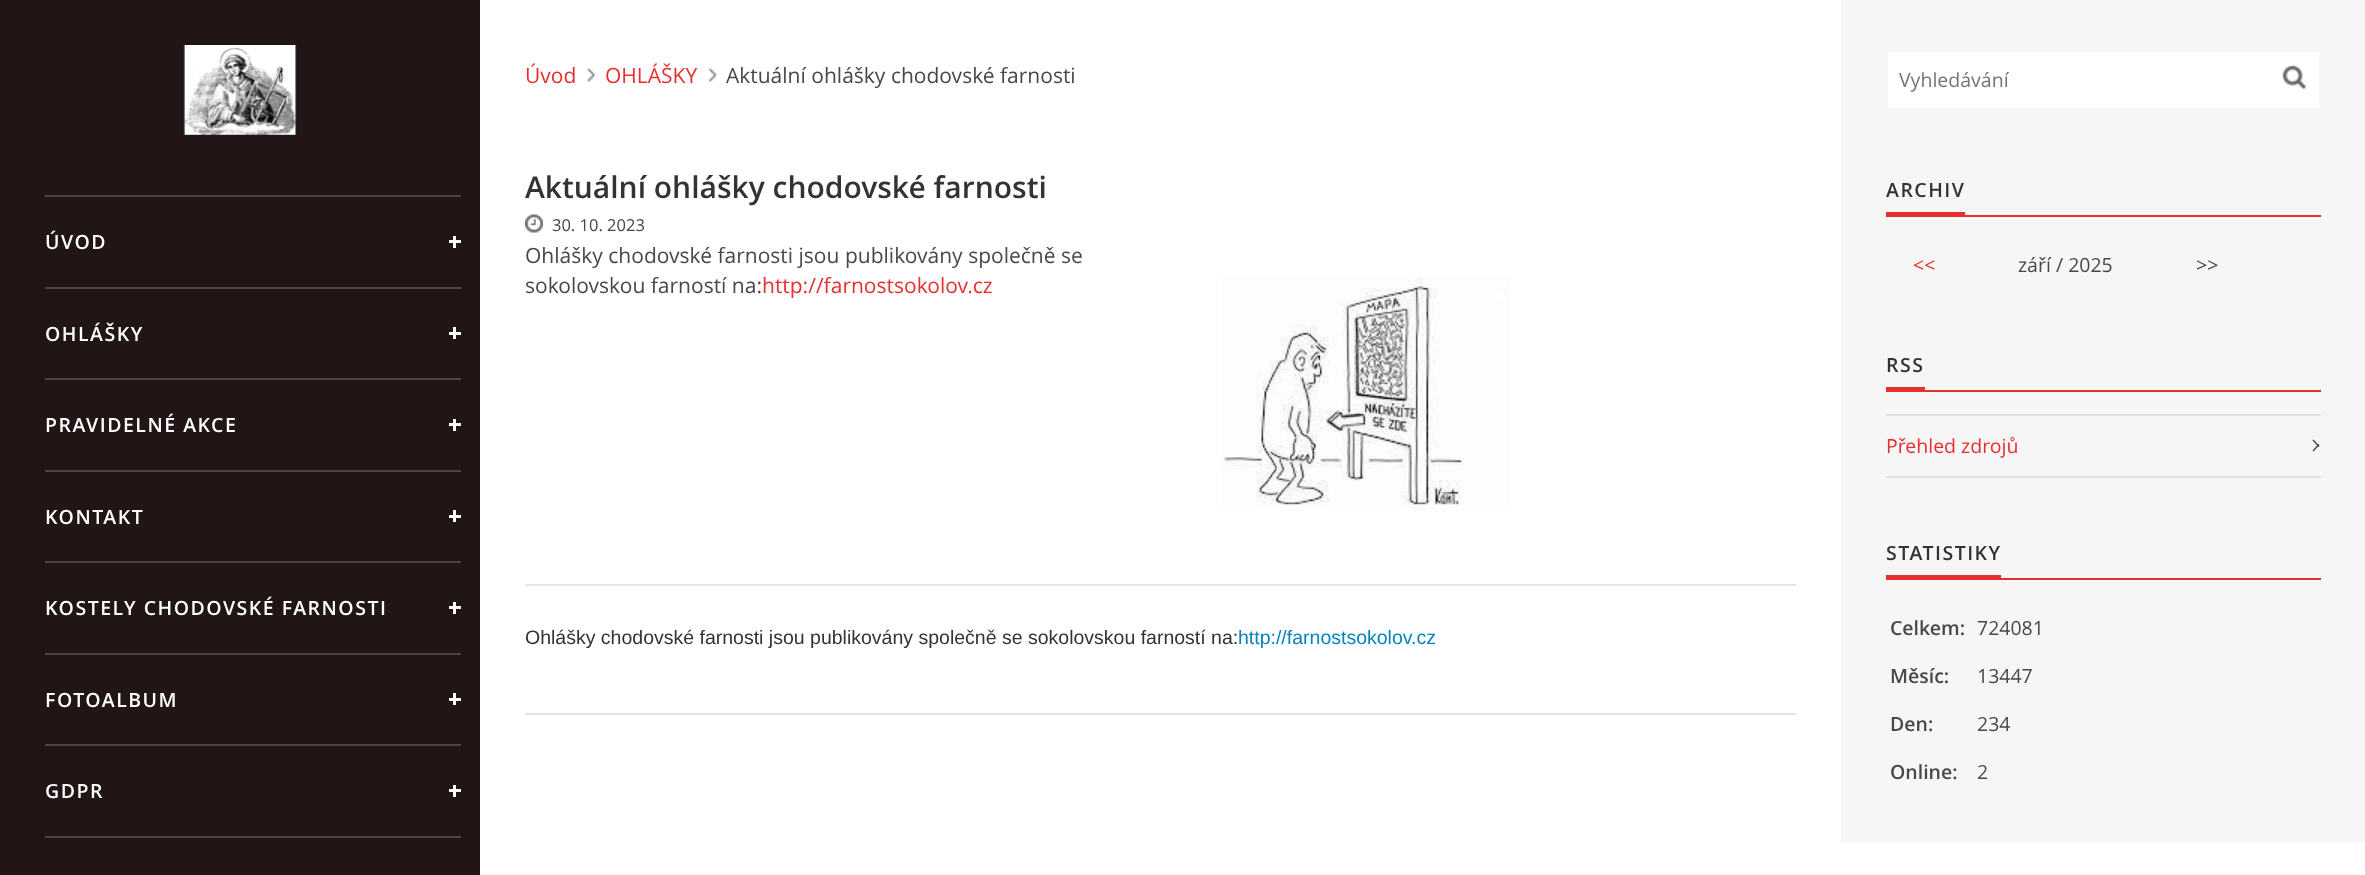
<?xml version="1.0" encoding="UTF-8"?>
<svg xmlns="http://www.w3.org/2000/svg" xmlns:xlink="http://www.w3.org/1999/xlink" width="2365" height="875">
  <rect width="100%" height="100%" fill="#ffffff" />
  <rect width="480" height="875" fill="#211515" />
  <image x="183" y="45" width="114" height="90" xlink:href="image1.png" />
  <rect x="45" y="195" width="416" height="2" fill="#4d4444" />
  <rect x="449" y="240" width="12" height="3" fill="#ffffff" />
  <rect x="453" y="236" width="3" height="12" fill="#ffffff" />
  <rect x="45" y="287" width="416" height="2" fill="#4d4444" />
  <rect x="449" y="332" width="12" height="3" fill="#ffffff" />
  <rect x="453" y="327" width="3" height="12" fill="#ffffff" />
  <rect x="45" y="378" width="416" height="2" fill="#4d4444" />
  <rect x="449" y="423" width="12" height="3" fill="#ffffff" />
  <rect x="453" y="419" width="3" height="12" fill="#ffffff" />
  <rect x="45" y="470" width="416" height="2" fill="#4d4444" />
  <rect x="449" y="515" width="12" height="3" fill="#ffffff" />
  <rect x="453" y="510" width="3" height="12" fill="#ffffff" />
  <rect x="45" y="561" width="416" height="2" fill="#4d4444" />
  <rect x="449" y="606" width="12" height="3" fill="#ffffff" />
  <rect x="453" y="602" width="3" height="12" fill="#ffffff" />
  <rect x="45" y="653" width="416" height="2" fill="#4d4444" />
  <rect x="449" y="698" width="12" height="3" fill="#ffffff" />
  <rect x="453" y="693" width="3" height="12" fill="#ffffff" />
  <rect x="45" y="744" width="416" height="2" fill="#4d4444" />
  <rect x="45" y="836" width="416" height="2" fill="#4d4444" />
  <rect x="449" y="789" width="12" height="3" fill="#ffffff" />
  <rect x="453" y="785" width="3" height="12" fill="#ffffff" />
  <image x="586" y="67" width="10" height="16" xlink:href="image2.png" />
  <image x="708" y="67" width="9" height="16" xlink:href="image3.png" />
  <rect x="525" y="713" width="1271" height="2" fill="#e8dfdf" />
  <image x="525" y="214" width="18" height="19" xlink:href="image4.png" />
  <rect x="525" y="584" width="1271" height="2" fill="#dfe8e2" />
  <image x="1221" y="276" width="288" height="235" xlink:href="image5.png" />
  <rect x="1841" width="524" height="842" fill="#f6f6f6" />
  <rect x="1888" y="52" width="431" height="56" fill="#ffffff" />
  <image x="2282" y="65" width="24" height="24" xlink:href="image6.png" />
  <rect x="1886" y="212" width="79" height="3" fill="#e62f2f" />
  <rect x="1886" y="215" width="435" height="2" fill="#e62f2f" />
  <rect x="1886" y="387" width="39" height="3" fill="#e62f2f" />
  <rect x="1886" y="390" width="435" height="2" fill="#e62f2f" />
  <rect x="1886" y="414" width="435" height="2" fill="#e8dfdf" />
  <rect x="1886" y="476" width="435" height="2" fill="#e8dfdf" />
  <path d="M 2313.5 439.5 l 6 6.5 l -1 1 l -6 -6.5 z" fill="#484848" />
  <path d="M 2312.5 450.5 l 6 -6.5 l 1 1 l -6 6.5 z" fill="#484848" />
  <rect x="1886" y="575" width="115" height="3" fill="#e62f2f" />
  <rect x="1886" y="578" width="435" height="2" fill="#e62f2f" />
  <text x="45" y="249" style="font-family: Open Sans; font-size: 19.5px; font-weight: 600; letter-spacing: 1.5px; fill: #ffffff">ÚVOD</text>
  <text x="45" y="341" style="font-family: Open Sans; font-size: 19.5px; font-weight: 600; letter-spacing: 1.5px; fill: #ffffff">OHLÁŠKY</text>
  <text x="45" y="432" style="font-family: Open Sans; font-size: 19.5px; font-weight: 600; letter-spacing: 1.5px; fill: #ffffff">PRAVIDELNÉ AKCE</text>
  <text x="45" y="524" style="font-family: Open Sans; font-size: 19.5px; font-weight: 600; letter-spacing: 1.5px; fill: #ffffff">KONTAKT</text>
  <text x="45" y="615" style="font-family: Open Sans; font-size: 19.5px; font-weight: 600; letter-spacing: 1.5px; fill: #ffffff">KOSTELY CHODOVSKÉ FARNOSTI</text>
  <text x="45" y="707" style="font-family: Open Sans; font-size: 19.5px; font-weight: 600; letter-spacing: 1.5px; fill: #ffffff">FOTOALBUM</text>
  <text x="45" y="798" style="font-family: Open Sans; font-size: 19.5px; font-weight: 600; letter-spacing: 1.5px; fill: #ffffff">GDPR</text>
  <text x="525" y="83" style="font-family: Open Sans; font-size: 21px; fill: #e62f2f">Úvod</text>
  <text x="605" y="83" style="font-family: Open Sans; font-size: 21px; fill: #e62f2f">OHLÁŠKY</text>
  <text x="726" y="83" style="font-family: Open Sans; font-size: 21px; fill: #484848">Aktuální ohlášky chodovské farnosti</text>
  <text x="525" y="198" style="font-family: Open Sans; font-size: 30px; font-weight: 600; fill: #333333">Aktuální ohlášky chodovské farnosti</text>
  <text x="552" y="231" style="font-family: Open Sans; font-size: 16.5px; fill: #484848">30. 10. 2023</text>
  <text x="525" y="263" style="font-family: Open Sans; font-size: 21px; fill: #484848">Ohlášky chodovské farnosti jsou publikovány společně se</text>
  <text x="525" y="293" style="font-family: Open Sans; font-size: 21px; fill: #484848">sokolovskou farností na:</text>
  <text x="762" y="293" style="font-family: Open Sans; font-size: 21px; fill: #e62f2f">http://farnostsokolov.cz</text>
  <text x="525" y="644" style="font-family: Liberation Sans; font-size: 19.5px; fill: #333333">Ohlášky chodovské farnosti jsou publikovány společně se sokolovskou farností na:</text>
  <text x="1238" y="644" style="font-family: Liberation Sans; font-size: 19.5px; fill: #0782c1">http://farnostsokolov.cz</text>
  <text x="1899" y="87" style="font-family: Open Sans; font-size: 19.5px; fill: #757575">Vyhledávání</text>
  <text x="1886" y="197" style="font-family: Open Sans; font-size: 19.5px; font-weight: 600; letter-spacing: 1.5px; fill: #333333">ARCHIV</text>
  <text x="1913" y="272" style="font-family: Open Sans; font-size: 19.5px; fill: #e62f2f">&lt;&lt;</text>
  <text x="2018" y="272" style="font-family: Open Sans; font-size: 19.5px; fill: #484848">září / 2025</text>
  <text x="2196" y="272" style="font-family: Open Sans; font-size: 19.5px; fill: #484848">&gt;&gt;</text>
  <text x="1886" y="372" style="font-family: Open Sans; font-size: 19.5px; font-weight: 600; letter-spacing: 1.5px; fill: #333333">RSS</text>
  <text x="1886" y="453" style="font-family: Open Sans; font-size: 19.5px; fill: #e62f2f">Přehled zdrojů</text>
  <text x="1886" y="560" style="font-family: Open Sans; font-size: 19.5px; font-weight: 600; letter-spacing: 1.5px; fill: #333333">STATISTIKY</text>
  <text x="1890" y="635" style="font-family: Open Sans; font-size: 19.5px; font-weight: 600; fill: #484848">Celkem:</text>
  <text x="1977" y="635" style="font-family: Open Sans; font-size: 19.5px; fill: #484848">724081</text>
  <text x="1890" y="683" style="font-family: Open Sans; font-size: 19.5px; font-weight: 600; fill: #484848">Měsíc:</text>
  <text x="1977" y="683" style="font-family: Open Sans; font-size: 19.5px; fill: #484848">13447</text>
  <text x="1890" y="731" style="font-family: Open Sans; font-size: 19.5px; font-weight: 600; fill: #484848">Den:</text>
  <text x="1977" y="731" style="font-family: Open Sans; font-size: 19.5px; fill: #484848">234</text>
  <text x="1890" y="779" style="font-family: Open Sans; font-size: 19.5px; font-weight: 600; fill: #484848">Online:</text>
  <text x="1977" y="779" style="font-family: Open Sans; font-size: 19.5px; fill: #484848">2</text>
</svg>
